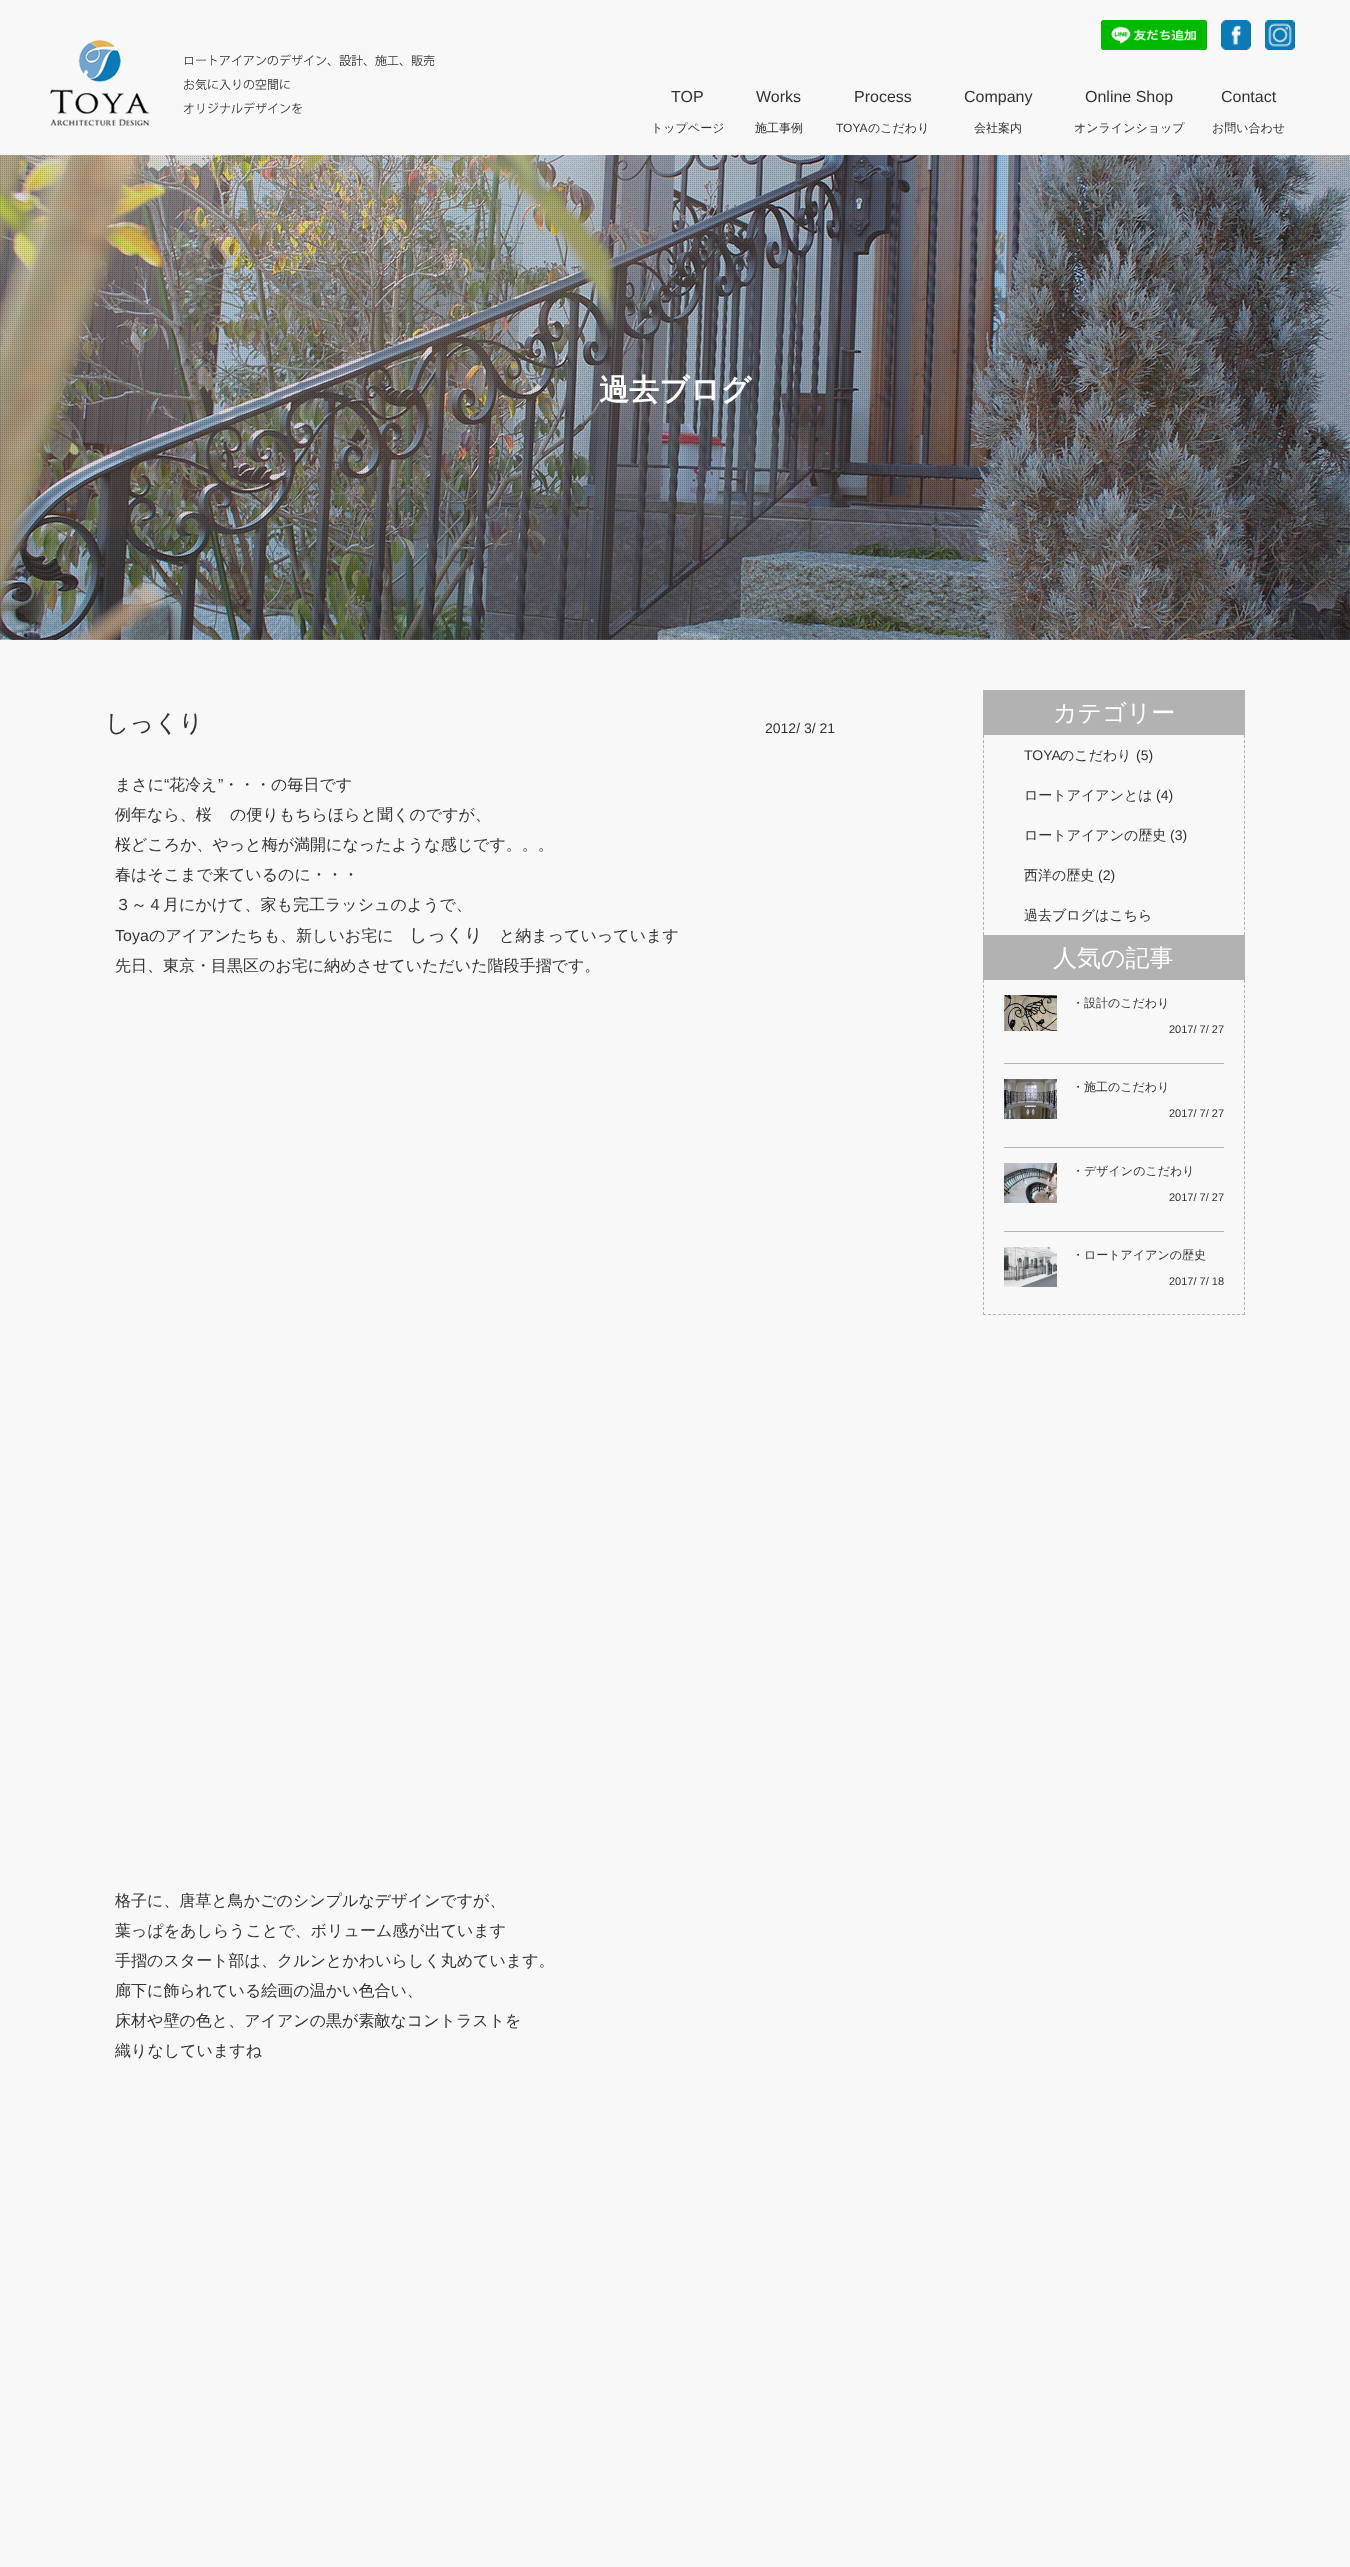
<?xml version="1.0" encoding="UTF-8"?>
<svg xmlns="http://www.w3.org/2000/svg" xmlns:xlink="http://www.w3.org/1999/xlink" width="1350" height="2567">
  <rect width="100%" height="100%" fill="#f8f8f8" />
  <image x="50" y="40" width="385" height="86" xlink:href="image1.png" />
  <image x="1101" y="20" width="106" height="30" xlink:href="image2.png" />
  <image x="1221" y="20" width="30" height="30" xlink:href="image3.png" />
  <image x="1265" y="20" width="30" height="30" xlink:href="image4.png" />
  <image x="0" y="155" width="1350" height="485" xlink:href="image5.png" />
  <rect x="983" y="690" width="262" height="45" fill="#b2b2b2" />
  <path d="M 1244.5 735 v 200" fill="none" stroke="#b2b2b2" stroke-dasharray="3 2.05" />
  <path d="M 983.5 735 v 200" fill="none" stroke="#b2b2b2" stroke-dasharray="3 2.05" />
  <rect x="983" y="935" width="262" height="45" fill="#b2b2b2" />
  <path d="M 1244.5 980 v 335" fill="none" stroke="#b2b2b2" stroke-dasharray="3 2.03" />
  <path d="M 983 1314.5 h 262" fill="none" stroke="#b2b2b2" stroke-dasharray="3 1.98" />
  <path d="M 983.5 980 v 335" fill="none" stroke="#b2b2b2" stroke-dasharray="3 2.03" />
  <rect x="1004" y="1063" width="220" height="1" fill="#b2b2b2" />
  <image x="1004" y="995" width="53" height="36" xlink:href="image6.png" />
  <rect x="1004" y="1147" width="220" height="1" fill="#b2b2b2" />
  <image x="1004" y="1079" width="53" height="40" xlink:href="image7.png" />
  <rect x="1004" y="1231" width="220" height="1" fill="#b2b2b2" />
  <image x="1004" y="1163" width="53" height="40" xlink:href="image8.png" />
  <image x="1004" y="1247" width="53" height="40" xlink:href="image9.png" />
  <text x="671" y="102" style="font-family: Liberation Sans; font-size: 16px; fill: #333333">TOP</text>
  <text x="651" y="132" style="font-family: WenQuanYi Zen Hei; font-size: 12px; font-weight: 500; fill: #333333">トップページ</text>
  <text x="756" y="102" style="font-family: Liberation Sans; font-size: 16px; fill: #333333">Works</text>
  <text x="755" y="132" style="font-family: WenQuanYi Zen Hei; font-size: 12px; font-weight: 500; fill: #333333">施工事例</text>
  <text x="854" y="102" style="font-family: Liberation Sans; font-size: 16px; fill: #333333">Process</text>
  <text x="836" y="132" style="font-family: Liberation Sans; font-size: 12px; fill: #333333">TOYA</text>
  <text x="868" y="132" style="font-family: WenQuanYi Zen Hei; font-size: 12px; font-weight: 500; fill: #333333">のこだわり</text>
  <text x="964" y="102" style="font-family: Liberation Sans; font-size: 16px; fill: #333333">Company</text>
  <text x="974" y="132" style="font-family: WenQuanYi Zen Hei; font-size: 12px; font-weight: 500; fill: #333333">会社案内</text>
  <text x="1085" y="102" style="font-family: Liberation Sans; font-size: 16px; fill: #333333">Online Shop</text>
  <text x="1074" y="132" style="font-family: WenQuanYi Zen Hei; font-size: 12px; font-weight: 500; fill: #333333">オンラインショップ</text>
  <text x="1221" y="102" style="font-family: Liberation Sans; font-size: 16px; fill: #333333">Contact</text>
  <text x="1212" y="132" style="font-family: WenQuanYi Zen Hei; font-size: 12px; font-weight: 500; fill: #333333">お問い合わせ</text>
  <text x="599" y="400" style="font-family: WenQuanYi Zen Hei; font-size: 30px; font-weight: bold; fill: #ffffff">過去ブログ</text>
  <text x="105" y="731" style="font-family: WenQuanYi Zen Hei; font-size: 24px; font-weight: 500; fill: #333333">しっくり</text>
  <text x="765" y="733" style="font-family: Liberation Sans; font-size: 14px; fill: #333333">2012/ 3/ 21</text>
  <text x="115" y="790" style="font-family: WenQuanYi Zen Hei; font-size: 16px; font-weight: 500; fill: #333333">まさに</text>
  <text x="164" y="790" style="font-family: Liberation Sans; font-size: 16px; fill: #333333">“</text>
  <text x="169" y="790" style="font-family: WenQuanYi Zen Hei; font-size: 16px; font-weight: 500; fill: #333333">花冷え</text>
  <text x="218" y="790" style="font-family: Liberation Sans; font-size: 16px; fill: #333333">”</text>
  <text x="223" y="790" style="font-family: WenQuanYi Zen Hei; font-size: 16px; font-weight: 500; fill: #333333">・・・の毎日です</text>
  <text x="115" y="820" style="font-family: WenQuanYi Zen Hei; font-size: 16px; font-weight: 500; fill: #333333">例年なら、桜</text>
  <text x="230" y="820" style="font-family: WenQuanYi Zen Hei; font-size: 16px; font-weight: 500; fill: #333333">の便りもちらほらと聞くのですが、</text>
  <text x="115" y="850" style="font-family: WenQuanYi Zen Hei; font-size: 16px; font-weight: 500; fill: #333333">桜どころか、やっと梅が満開になったような感じです。。。</text>
  <text x="115" y="880" style="font-family: WenQuanYi Zen Hei; font-size: 16px; font-weight: 500; fill: #333333">春はそこまで来ているのに・・・</text>
  <text x="115" y="910" style="font-family: WenQuanYi Zen Hei; font-size: 16px; font-weight: 500; fill: #333333">３～４月にかけて、家も完工ラッシュのようで、</text>
  <text x="115" y="941" style="font-family: Liberation Sans; font-size: 16px; fill: #333333">Toya</text>
  <text x="149" y="941" style="font-family: WenQuanYi Zen Hei; font-size: 16px; font-weight: 500; fill: #333333">のアイアンたちも、新しいお宅に</text>
  <text x="409" y="941" style="font-family: WenQuanYi Zen Hei; font-size: 18px; font-weight: 500; fill: #333333">しっくり</text>
  <text x="499" y="941" style="font-family: WenQuanYi Zen Hei; font-size: 16px; font-weight: 500; fill: #333333">と納まっていっています</text>
  <text x="115" y="971" style="font-family: WenQuanYi Zen Hei; font-size: 16px; font-weight: 500; fill: #333333">先日、東京・目黒区のお宅に納めさせていただいた階段手摺です。</text>
  <text x="115" y="1906" style="font-family: WenQuanYi Zen Hei; font-size: 16px; font-weight: 500; fill: #333333">格子に、唐草と鳥かごのシンプルなデザインですが、</text>
  <text x="115" y="1936" style="font-family: WenQuanYi Zen Hei; font-size: 16px; font-weight: 500; fill: #333333">葉っぱをあしらうことで、ボリューム感が出ています</text>
  <text x="115" y="1966" style="font-family: WenQuanYi Zen Hei; font-size: 16px; font-weight: 500; fill: #333333">手摺のスタート部は、クルンとかわいらしく丸めています。</text>
  <text x="115" y="1996" style="font-family: WenQuanYi Zen Hei; font-size: 16px; font-weight: 500; fill: #333333">廊下に飾られている絵画の温かい色合い、</text>
  <text x="115" y="2026" style="font-family: WenQuanYi Zen Hei; font-size: 16px; font-weight: 500; fill: #333333">床材や壁の色と、アイアンの黒が素敵なコントラストを</text>
  <text x="115" y="2056" style="font-family: WenQuanYi Zen Hei; font-size: 16px; font-weight: 500; fill: #333333">織りなしていますね</text>
  <text x="1053" y="721" style="font-family: WenQuanYi Zen Hei; font-size: 24px; font-weight: 500; fill: #ffffff">カテゴリー</text>
  <text x="1024" y="760" style="font-family: Liberation Sans; font-size: 14px; fill: #333333">TOYA</text>
  <text x="1060" y="760" style="font-family: WenQuanYi Zen Hei; font-size: 14px; font-weight: 500; fill: #333333">のこだわり</text>
  <text x="1136" y="760" style="font-family: Liberation Sans; font-size: 14px; fill: #333333">(5)</text>
  <text x="1024" y="800" style="font-family: WenQuanYi Zen Hei; font-size: 14px; font-weight: 500; fill: #333333">ロートアイアンとは</text>
  <text x="1156" y="800" style="font-family: Liberation Sans; font-size: 14px; fill: #333333">(4)</text>
  <text x="1024" y="840" style="font-family: WenQuanYi Zen Hei; font-size: 14px; font-weight: 500; fill: #333333">ロートアイアンの歴史</text>
  <text x="1170" y="840" style="font-family: Liberation Sans; font-size: 14px; fill: #333333">(3)</text>
  <text x="1024" y="880" style="font-family: WenQuanYi Zen Hei; font-size: 14px; font-weight: 500; fill: #333333">西洋の歴史</text>
  <text x="1098" y="880" style="font-family: Liberation Sans; font-size: 14px; fill: #333333">(2)</text>
  <text x="1024" y="920" style="font-family: WenQuanYi Zen Hei; font-size: 14px; font-weight: 500; fill: #333333">過去ブログはこちら</text>
  <text x="1053" y="966" style="font-family: WenQuanYi Zen Hei; font-size: 24px; font-weight: 500; fill: #ffffff">人気の記事</text>
  <text x="1072" y="1007" style="font-family: WenQuanYi Zen Hei; font-size: 12px; font-weight: 500; fill: #333333">・設計のこだわり</text>
  <text x="1169" y="1033" style="font-family: Liberation Sans; font-size: 11px; fill: #333333">2017/ 7/ 27</text>
  <text x="1072" y="1091" style="font-family: WenQuanYi Zen Hei; font-size: 12px; font-weight: 500; fill: #333333">・施工のこだわり</text>
  <text x="1169" y="1117" style="font-family: Liberation Sans; font-size: 11px; fill: #333333">2017/ 7/ 27</text>
  <text x="1072" y="1175" style="font-family: WenQuanYi Zen Hei; font-size: 12px; font-weight: 500; fill: #333333">・デザインのこだわり</text>
  <text x="1169" y="1201" style="font-family: Liberation Sans; font-size: 11px; fill: #333333">2017/ 7/ 27</text>
  <text x="1072" y="1259" style="font-family: WenQuanYi Zen Hei; font-size: 12px; font-weight: 500; fill: #333333">・ロートアイアンの歴史</text>
  <text x="1169" y="1285" style="font-family: Liberation Sans; font-size: 11px; fill: #333333">2017/ 7/ 18</text>
</svg>
